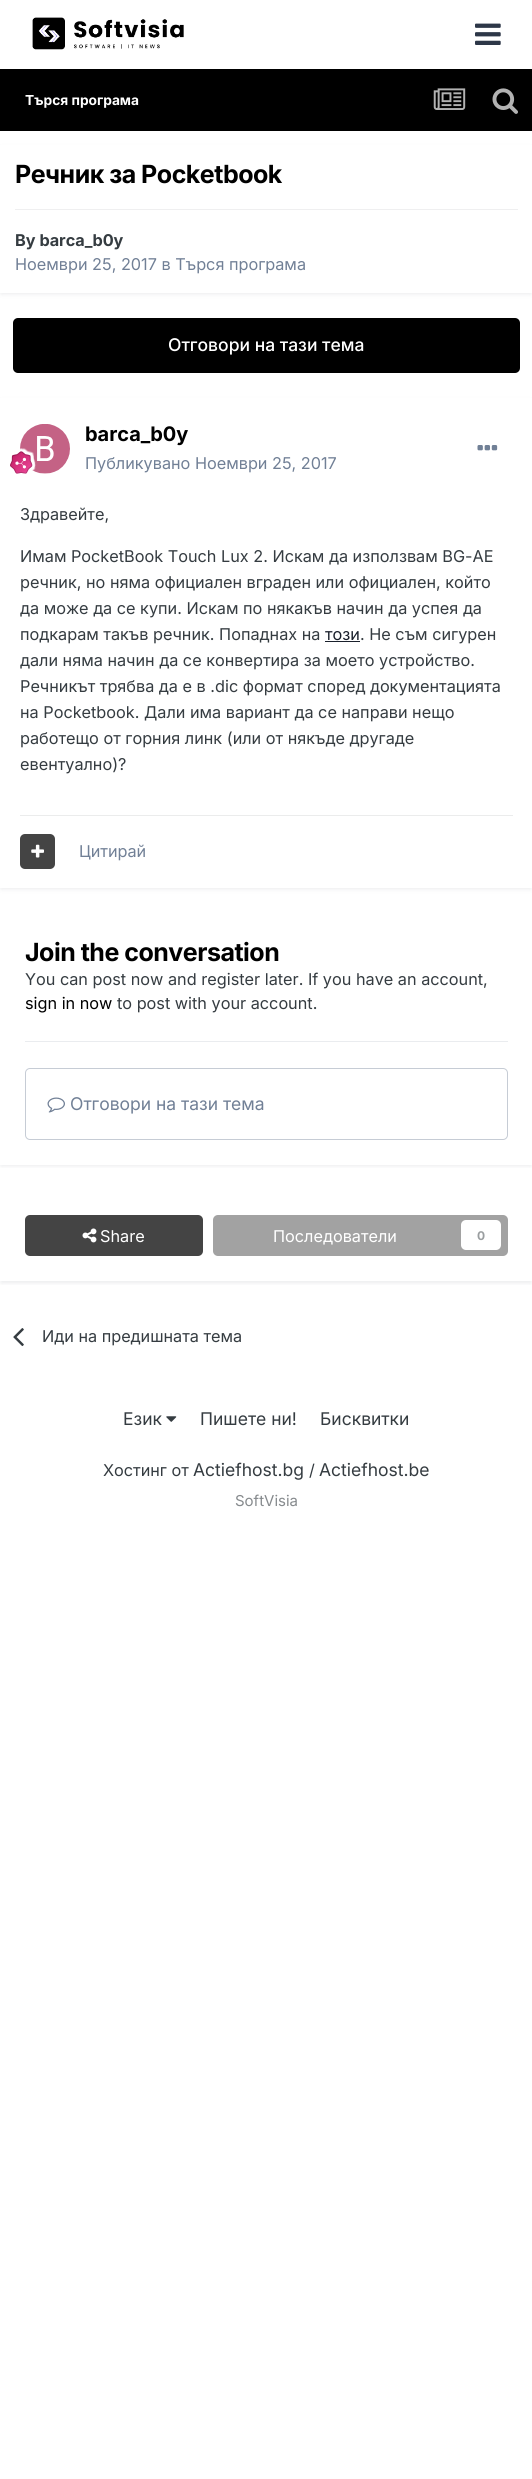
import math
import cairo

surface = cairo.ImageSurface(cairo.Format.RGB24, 532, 2479)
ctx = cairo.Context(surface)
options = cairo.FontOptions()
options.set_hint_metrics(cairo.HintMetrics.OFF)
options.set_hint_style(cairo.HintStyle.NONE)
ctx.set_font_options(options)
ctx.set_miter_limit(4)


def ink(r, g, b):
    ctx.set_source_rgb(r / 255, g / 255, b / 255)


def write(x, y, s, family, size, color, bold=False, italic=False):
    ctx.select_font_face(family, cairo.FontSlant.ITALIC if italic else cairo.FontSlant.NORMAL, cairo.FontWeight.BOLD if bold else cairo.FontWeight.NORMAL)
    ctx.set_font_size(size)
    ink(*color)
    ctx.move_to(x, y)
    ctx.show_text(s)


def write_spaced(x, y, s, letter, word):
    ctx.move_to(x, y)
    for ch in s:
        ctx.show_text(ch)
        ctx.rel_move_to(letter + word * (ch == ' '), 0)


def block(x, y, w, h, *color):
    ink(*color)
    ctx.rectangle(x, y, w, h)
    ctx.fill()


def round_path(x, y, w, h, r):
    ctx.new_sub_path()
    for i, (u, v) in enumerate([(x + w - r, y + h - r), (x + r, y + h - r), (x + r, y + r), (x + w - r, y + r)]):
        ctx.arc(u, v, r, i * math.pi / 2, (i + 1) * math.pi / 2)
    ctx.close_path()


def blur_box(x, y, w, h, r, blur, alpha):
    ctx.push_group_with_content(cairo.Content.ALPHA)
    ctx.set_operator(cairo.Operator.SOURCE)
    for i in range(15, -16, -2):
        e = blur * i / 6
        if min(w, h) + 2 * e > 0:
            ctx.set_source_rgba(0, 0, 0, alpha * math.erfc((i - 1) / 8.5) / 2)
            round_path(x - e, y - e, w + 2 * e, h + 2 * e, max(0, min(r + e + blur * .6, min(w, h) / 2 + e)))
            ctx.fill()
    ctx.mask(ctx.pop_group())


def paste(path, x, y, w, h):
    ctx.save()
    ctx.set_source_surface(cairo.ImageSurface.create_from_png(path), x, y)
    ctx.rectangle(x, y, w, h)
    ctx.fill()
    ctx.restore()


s1 = dict(family="Inter", size=13.75, color=(255, 255, 255), bold=True)
s2 = dict(family="Inter", size=16.25, color=(53, 60, 65), bold=True)
s3 = dict(family="Inter", size=16.25, color=(113, 128, 150))
s4 = dict(family="Inter Medium", size=17.5, color=(255, 255, 255))
s5 = dict(family="Inter", size=20, color=(0, 0, 0), bold=True)
s6 = dict(family="Inter", size=16.25, color=(53, 60, 65))
s7 = dict(family="Inter", size=16.25, color=(26, 32, 44))
s8 = dict(family="Inter", size=16.25, color=(0, 0, 0))
s9 = dict(family="Inter", size=17.5, color=(113, 128, 150))
s10 = dict(family="Inter", size=16.25, color=(255, 255, 255))
s11 = dict(family="Inter", size=12, color=(154, 158, 160), bold=True)
s12 = dict(family="Inter", size=17.5, color=(53, 60, 65))
s13 = dict(family="Inter", size=15, color=(134, 138, 141))

ink(255, 255, 255)
ctx.paint()
paste("pic1.png", 32, 17, 152, 33)
paste("pic2.png", 475, 23, 26, 22)
block(0, 69, 532, 62, 0, 0, 0)
write(25, 105, "Търся програма", **s1)
paste("pic3.png", 433, 88, 33, 22)
paste("pic4.png", 492, 88, 26, 26)
ink(45, 55, 72)
blur_box(1, 148, 530, 146, 0, 2.5, 0.1)
block(0, 145, 532, 148, 255, 255, 255)
ctx.set_font_size(25)
ink(0, 0, 0)
write_spaced(15, 183, "Речник за Pocketbook", -0.5, 0)
block(15, 209, 503, 1, 239, 239, 240)
write(15, 246, "By barca_b0y", **s2)
write(15, 270, "Ноември 25, 2017 в Търся програма", **s3)
ink(0, 0, 0)
round_path(13, 318, 507, 55, 5)
ctx.fill()
write(168, 351, "Отговори на тази тема", **s4)
ink(45, 55, 72)
blur_box(1, 401, 530, 488, 0, 2.5, 0.1)
block(0, 398, 532, 490, 255, 255, 255)
paste("pic5.png", 20, 424, 50, 50)
paste("pic6.png", 10, 448, 26, 26)
write(85, 441, "barca_b0y", **s5)
write(85, 469, "Публикувано Ноември 25, 2017", **s3)
paste("pic7.png", 477, 445, 21, 6)
write(20, 520, "Здравейте,", **s6)
write(20, 562, "Имам PocketBook Touch Lux 2. Искам да използвам BG-AE", **s6)
write(20, 588, "речник, но няма официален вграден или официален, който", **s6)
write(20, 614, "да може да се купи. Искам по някакъв начин да успея да", **s6)
write(20, 640, "подкарам такъв речник. Попаднах на", **s6)
write(325, 640, "този", **s7)
block(325, 641, 35, 1, 26, 32, 44)
write(360, 640, ". Не съм сигурен", **s6)
write(20, 666, "дали няма начин да се конвертира за моето устройство.", **s6)
write(20, 692, "Речникът трябва да е в .dic формат според документацията", **s6)
write(20, 718, "на Pocketbook. Дали има вариант да се направи нещо", **s6)
write(20, 744, "работещо от горния линк (или от някъде другаде", **s6)
write(20, 770, "евентуално)?", **s6)
block(20, 815, 493, 1, 235, 236, 236)
ink(68, 68, 68)
round_path(20, 834, 35, 35, 5)
ctx.fill()
paste("pic8.png", 31, 844, 13, 14)
write(79, 857, "Цитирай", **s3)
ctx.save()
ctx.rectangle(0, 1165, 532, 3)
ctx.clip()
ink(45, 55, 72)
blur_box(1, 916, 530, 250, 0, 2.5, 0.1)
ctx.restore()
block(25, 1041, 483, 1, 234, 236, 239)
ctx.select_font_face("Inter", cairo.FontSlant.NORMAL, cairo.FontWeight.BOLD)
ctx.set_font_size(25)
ink(0, 0, 0)
write_spaced(25, 961, "Join the conversation", -0.5, 0)
write(25, 985, "You can post now and register later. If you have an account,", **s6)
write(25, 1009, "sign in now", **s8)
write(117, 1009, "to post with your account.", **s6)
round_path(25.5, 1068.5, 482, 71, 4.5)
ink(198, 204, 213)
ctx.set_line_width(1)
ctx.stroke()
paste("pic9.png", 47, 1097, 18, 16)
write(70, 1110, "Отговори на тази тема", **s9)
ctx.save()
ctx.rectangle(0, 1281, 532, 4)
ctx.clip()
ink(45, 55, 72)
blur_box(1, 1194, 530, 89, 0, 2.5, 0.1)
ctx.restore()
ink(68, 68, 68)
round_path(25, 1215, 178, 41, 5)
ctx.fill()
paste("pic10.png", 82, 1228, 15, 15)
write(100, 1242, "Share", **s10)
ink(162, 162, 162)
round_path(213, 1215, 295, 41, 5)
ctx.fill()
write(273, 1242, "Последователи", **s10)
round_path(461, 1220, 40, 30, 5)
ctx.fill()
write(477, 1240, "0", **s11)
paste("pic11.png", 13, 1328, 11, 19)
write(42, 1342, "Иди на предишната тема", **s6)
write(123, 1425, "Език", **s12)
paste("pic12.png", 166, 1416, 11, 6)
write(200, 1425, "Пишете ни!", **s12)
write(320, 1425, "Бисквитки", **s12)
write(103, 1476, "Хостинг от", **s6)
write(193, 1476, "Actiefhost.bg", **s12)
write(309, 1476, "/", **s6)
write(319, 1476, "Actiefhost.be", **s12)
write(235, 1506, "SoftVisia", **s13)
surface.write_to_png("screenshot.png")
